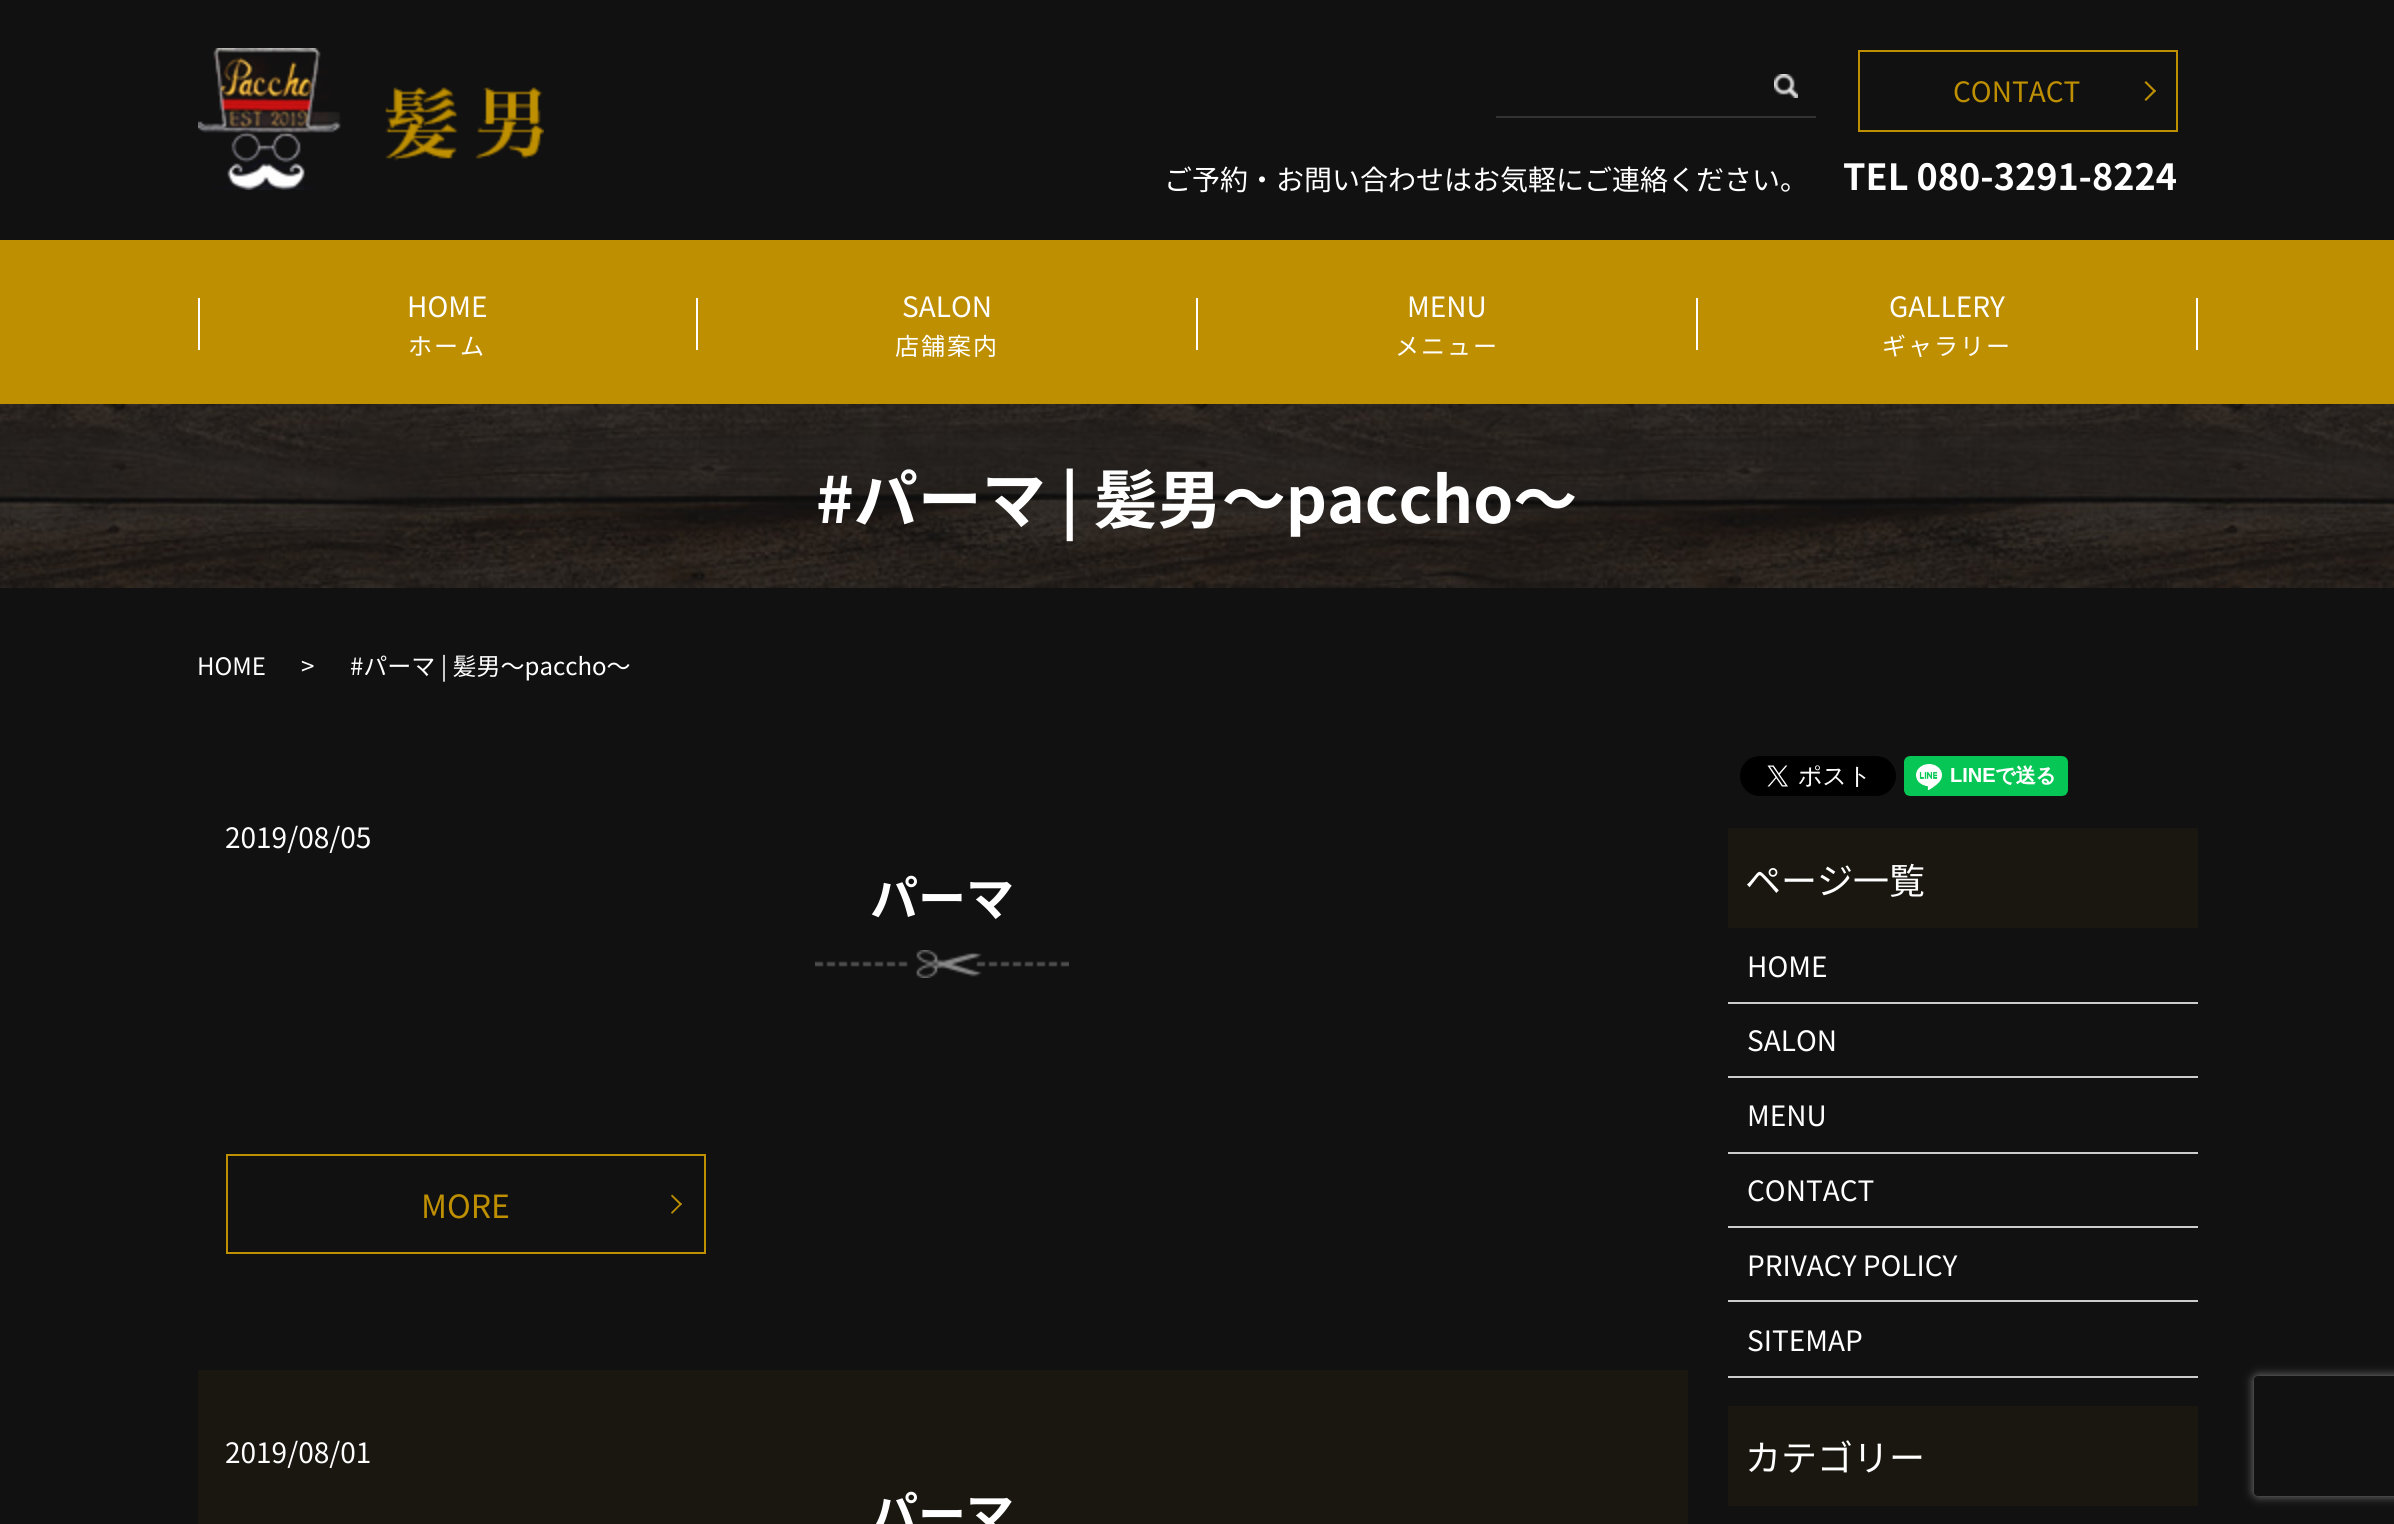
import math
import cairo

surface = cairo.ImageSurface(cairo.Format.RGB24, 2394, 1524)
ctx = cairo.Context(surface)
options = cairo.FontOptions()
options.set_hint_metrics(cairo.HintMetrics.OFF)
options.set_hint_style(cairo.HintStyle.NONE)
ctx.set_font_options(options)
ctx.set_miter_limit(4)


def ink(r, g, b):
    ctx.set_source_rgb(r / 255, g / 255, b / 255)


def write(x, y, s, family, size, color, bold=False, italic=False):
    ctx.select_font_face(family, cairo.FontSlant.ITALIC if italic else cairo.FontSlant.NORMAL, cairo.FontWeight.BOLD if bold else cairo.FontWeight.NORMAL)
    ctx.set_font_size(size)
    ink(*color)
    ctx.move_to(x, y)
    ctx.show_text(s)


def write_spaced(x, y, s, letter, word):
    ctx.move_to(x, y)
    for ch in s:
        ctx.show_text(ch)
        ctx.rel_move_to(letter + word * (ch == ' '), 0)


def block(x, y, w, h, *color):
    ink(*color)
    ctx.rectangle(x, y, w, h)
    ctx.fill()


def round_path(x, y, w, h, r):
    ctx.new_sub_path()
    for i, (u, v) in enumerate([(x + w - r, y + h - r), (x + r, y + h - r), (x + r, y + r), (x + w - r, y + r)]):
        ctx.arc(u, v, r, i * math.pi / 2, (i + 1) * math.pi / 2)
    ctx.close_path()


def blur_box(x, y, w, h, r, blur, alpha):
    ctx.push_group_with_content(cairo.Content.ALPHA)
    ctx.set_operator(cairo.Operator.SOURCE)
    for i in range(15, -16, -2):
        e = blur * i / 6
        if min(w, h) + 2 * e > 0:
            ctx.set_source_rgba(0, 0, 0, alpha * math.erfc((i - 1) / 8.5) / 2)
            round_path(x - e, y - e, w + 2 * e, h + 2 * e, max(0, min(r + e + blur * .6, min(w, h) / 2 + e)))
            ctx.fill()
    ctx.mask(ctx.pop_group())


def paste(path, x, y, w, h):
    ctx.save()
    ctx.set_source_surface(cairo.ImageSurface.create_from_png(path), x, y)
    ctx.rectangle(x, y, w, h)
    ctx.fill()
    ctx.restore()


s1 = dict(family="Noto Sans JP", size=28, color=(190, 143, 0))
s2 = dict(family="Noto Sans JP", size=28, color=(255, 255, 255))
s3 = dict(family="Noto Sans JP", size=36, color=(255, 255, 255), bold=True)
s4 = dict(family="Noto Sans JP", size=64, color=(255, 255, 255), bold=True)
s5 = dict(family="Noto Sans JP", size=24, color=(255, 255, 255))
s6 = dict(family="Noto Sans JP", size=48, color=(255, 255, 255), bold=True)
s7 = dict(family="Noto Sans JP", size=32, color=(190, 143, 0))
s8 = dict(family="Noto Sans JP", size=36, color=(255, 255, 255))

ink(17, 17, 17)
ctx.paint()
block(0, 240, 2394, 164, 190, 143, 0)
block(1496, 116, 320, 2, 51, 51, 51)
paste("pic1.png", 1774, 74, 24, 24)
ctx.rectangle(1859, 51, 318, 80)
ink(190, 143, 0)
ctx.stroke()
write(1953, 102, "CONTACT", **s1)
ctx.new_path()
ctx.move_to(2146, 81)
ctx.line_to(2156, 91)
ctx.line_to(2154.5, 92.5)
ctx.line_to(2144.5, 82.5)
ctx.close_path()
ctx.fill()
ctx.new_path()
ctx.move_to(2154.5, 89.5)
ctx.line_to(2156, 91)
ctx.line_to(2146, 101)
ctx.line_to(2144.5, 99.5)
ctx.close_path()
ctx.fill()
block(198, 298, 2, 52, 255, 255, 255)
write(407, 317, "HOME", **s2)
block(696, 298, 2, 52, 255, 255, 255)
ctx.set_font_size(24)
write_spaced(408, 355, "ホーム", 2, 0)
write(902, 317, "SALON", **s2)
block(1196, 298, 2, 52, 255, 255, 255)
ctx.set_font_size(24)
write_spaced(895, 355, "店舗案内", 2, 0)
write(1407, 317, "MENU", **s2)
block(1696, 298, 2, 52, 255, 255, 255)
ctx.set_font_size(24)
write_spaced(1395, 355, "メニュー", 2, 0)
write(1889, 317, "GALLERY", **s2)
block(2196, 298, 2, 52, 255, 255, 255)
ctx.set_font_size(24)
write_spaced(1882, 355, "ギャラリー", 2, 0)
paste("pic2.png", 198, 48, 346, 142)
write(1164, 190, "ご予約・お問い合わせはお気軽にご連絡ください。", **s2)
write(1843, 190, "TEL 080-3291-8224", **s3)
paste("pic3.png", 0, 404, 2394, 184)
write(816, 523, "#パーマ | 髪男～paccho～", **s4)
write(197, 675, "HOME", **s5)
write(301, 675, ">", **s5)
write(350, 675, "#パーマ | 髪男～paccho～", **s5)
write(225, 848, "2019/08/05", **s2)
write(870, 916, "パーマ", **s6)
paste("pic4.png", 815, 950, 254, 28)
ctx.rectangle(227, 1155, 478, 98)
ink(190, 143, 0)
ctx.stroke()
write(421, 1218, "MORE", **s7)
ctx.new_path()
ctx.move_to(672, 1194.5)
ctx.line_to(682, 1204)
ctx.line_to(680.5, 1205.5)
ctx.line_to(671, 1196)
ctx.close_path()
ctx.fill()
ctx.new_path()
ctx.move_to(680.5, 1203)
ctx.line_to(682, 1204)
ctx.line_to(672, 1214)
ctx.line_to(671, 1212.5)
ctx.close_path()
ctx.fill()
block(198, 1370, 1490, 154, 26, 23, 16)
write(225, 1463, "2019/08/01", **s2)
write(870, 1532, "パーマ", **s6)
paste("pic5.png", 1740, 756, 156, 40)
paste("pic6.png", 1904, 756, 164, 40)
block(1728, 828, 470, 100, 26, 23, 16)
write(1745, 894, "ページ一覧", **s8)
block(1728, 1002, 470, 2, 204, 204, 204)
write(1747, 977, "HOME", **s2)
block(1728, 1076, 470, 2, 204, 204, 204)
write(1747, 1051, "SALON", **s2)
block(1728, 1152, 470, 2, 204, 204, 204)
write(1747, 1126, "MENU", **s2)
block(1728, 1226, 470, 2, 204, 204, 204)
write(1747, 1201, "CONTACT", **s2)
block(1728, 1300, 470, 2, 204, 204, 204)
write(1747, 1276, "PRIVACY POLICY", **s2)
block(1728, 1376, 470, 2, 204, 204, 204)
write(1747, 1351, "SITEMAP", **s2)
block(1728, 1406, 470, 100, 26, 23, 16)
write(1745, 1471, "カテゴリー", **s8)
ctx.save()
ctx.set_fill_rule(cairo.FillRule.EVEN_ODD)
ctx.new_path()
ctx.move_to(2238, 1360)
ctx.line_to(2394, 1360)
ctx.line_to(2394, 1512)
ctx.line_to(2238, 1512)
ctx.close_path()
ctx.move_to(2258, 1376)
ctx.line_to(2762, 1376)
ctx.curve_to(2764, 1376, 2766, 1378, 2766, 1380)
ctx.line_to(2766, 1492)
ctx.curve_to(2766, 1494, 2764, 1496, 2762, 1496)
ctx.line_to(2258, 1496)
ctx.curve_to(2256, 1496, 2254, 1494, 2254, 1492)
ctx.line_to(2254, 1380)
ctx.curve_to(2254, 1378, 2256, 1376, 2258, 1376)
ctx.close_path()
ctx.clip()
ink(128, 128, 128)
blur_box(2254, 1376, 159, 120, 4, 5, 1)
ctx.restore()
surface.write_to_png("screenshot.png")
